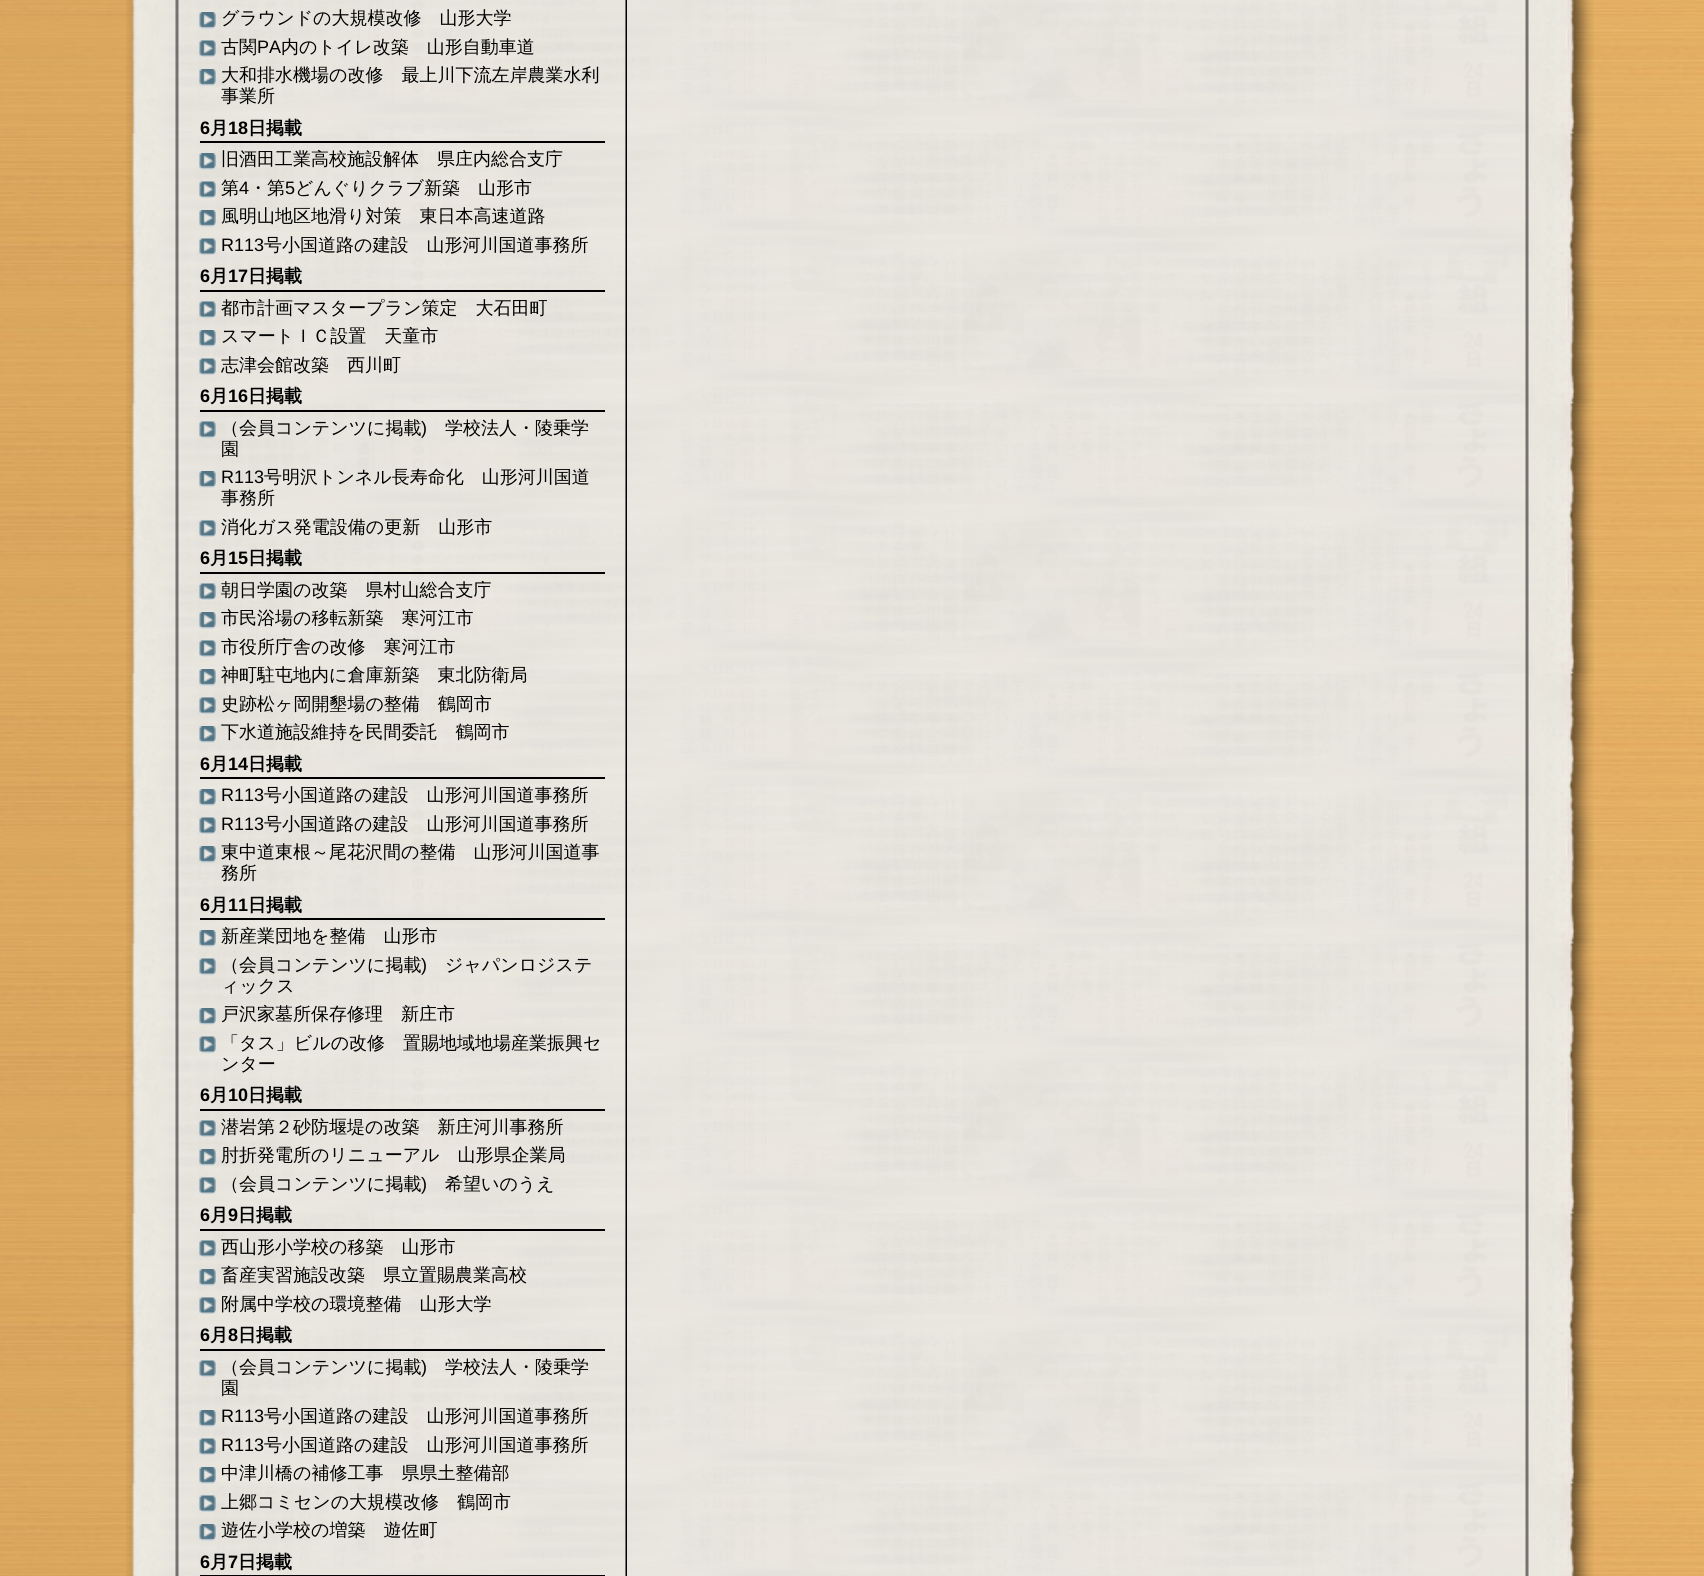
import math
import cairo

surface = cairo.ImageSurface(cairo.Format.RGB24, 1704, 1576)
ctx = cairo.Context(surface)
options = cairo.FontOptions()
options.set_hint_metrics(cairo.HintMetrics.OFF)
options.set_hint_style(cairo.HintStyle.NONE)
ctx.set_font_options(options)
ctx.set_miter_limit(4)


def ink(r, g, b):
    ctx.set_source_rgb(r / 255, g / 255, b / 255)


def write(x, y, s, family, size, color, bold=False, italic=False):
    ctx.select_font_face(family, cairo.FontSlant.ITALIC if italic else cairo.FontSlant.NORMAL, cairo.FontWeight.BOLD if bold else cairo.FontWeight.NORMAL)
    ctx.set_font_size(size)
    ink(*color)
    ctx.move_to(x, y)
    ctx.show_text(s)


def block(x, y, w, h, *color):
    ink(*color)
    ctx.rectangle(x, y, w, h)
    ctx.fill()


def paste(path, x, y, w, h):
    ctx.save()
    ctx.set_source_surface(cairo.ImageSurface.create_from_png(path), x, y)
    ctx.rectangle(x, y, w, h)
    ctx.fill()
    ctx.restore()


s1 = dict(family="WenQuanYi Zen Hei Medium", size=18, color=(0, 0, 0))
s2 = dict(family="Liberation Sans", size=18, color=(0, 0, 0))
s3 = dict(family="Liberation Sans", size=18, color=(0, 0, 0), bold=True)
s4 = dict(family="WenQuanYi Zen Hei", size=18, color=(0, 0, 0), bold=True)

ink(255, 255, 255)
ctx.paint()
paste("pic1.png", 0, 0, 1704, 1576)
paste("pic2.png", 126, 0, 1468, 1576)
paste("pic3.png", 625, 0, 2, 1576)
paste("pic4.png", 199, 12, 17, 17)
write(221, 24, "グラウンドの大規模改修　山形大学", **s1)
paste("pic5.png", 199, 40, 17, 17)
write(221, 53, "古関", **s1)
write(257, 53, "PA", **s2)
write(281, 53, "内のトイレ改築　山形自動車道", **s1)
paste("pic6.png", 199, 69, 17, 17)
write(221, 81, "大和排水機場の改修　最上川下流左岸農業水利", **s1)
write(221, 102, "事業所", **s1)
block(200, 141, 405, 2, 0, 0, 0)
write(200, 134, "6", **s3)
write(210, 134, "月", **s4)
write(228, 134, "18", **s3)
write(248, 134, "日掲載", **s4)
paste("pic7.png", 199, 153, 17, 17)
write(221, 165, "旧酒田工業高校施設解体　県庄内総合支庁", **s1)
paste("pic8.png", 199, 181, 17, 17)
write(221, 194, "第", **s1)
write(239, 194, "4", **s2)
write(249, 194, "・第", **s1)
write(285, 194, "5", **s2)
write(295, 194, "どんぐりクラブ新築　山形市", **s1)
paste("pic9.png", 199, 210, 17, 17)
write(221, 222, "風明山地区地滑り対策　東日本高速道路", **s1)
paste("pic10.png", 199, 238, 17, 17)
write(221, 251, "R113", **s2)
write(264, 251, "号小国道路の建設　山形河川国道事務所", **s1)
block(200, 290, 405, 2, 0, 0, 0)
write(200, 282, "6", **s3)
write(210, 282, "月", **s4)
write(228, 282, "17", **s3)
write(248, 282, "日掲載", **s4)
paste("pic11.png", 199, 301, 17, 17)
write(221, 314, "都市計画マスタープラン策定　大石田町", **s1)
paste("pic12.png", 199, 330, 17, 17)
write(221, 342, "スマートＩＣ設置　天童市", **s1)
paste("pic13.png", 199, 358, 17, 17)
write(221, 371, "志津会館改築　西川町", **s1)
block(200, 410, 405, 2, 0, 0, 0)
write(200, 402, "6", **s3)
write(210, 402, "月", **s4)
write(228, 402, "16", **s3)
write(248, 402, "日掲載", **s4)
paste("pic14.png", 199, 421, 17, 18)
write(221, 434, "（会員コンテンツに掲載", **s1)
write(421, 434, ")", **s2)
write(445, 434, "学校法人・陵乗学", **s1)
write(221, 455, "園", **s1)
paste("pic15.png", 199, 471, 17, 17)
write(221, 483, "R113", **s2)
write(264, 483, "号明沢トンネル長寿命化　山形河川国道", **s1)
write(221, 504, "事務所", **s1)
paste("pic16.png", 199, 520, 17, 17)
write(221, 533, "消化ガス発電設備の更新　山形市", **s1)
block(200, 572, 405, 2, 0, 0, 0)
write(200, 564, "6", **s3)
write(210, 564, "月", **s4)
write(228, 564, "15", **s3)
write(248, 564, "日掲載", **s4)
paste("pic17.png", 199, 583, 17, 17)
write(221, 596, "朝日学園の改築　県村山総合支庁", **s1)
paste("pic18.png", 199, 612, 17, 17)
write(221, 624, "市民浴場の移転新築　寒河江市", **s1)
paste("pic19.png", 199, 640, 17, 17)
write(221, 653, "市役所庁舎の改修　寒河江市", **s1)
paste("pic20.png", 199, 669, 17, 17)
write(221, 681, "神町駐屯地内に倉庫新築　東北防衛局", **s1)
paste("pic21.png", 199, 697, 17, 17)
write(221, 710, "史跡松ヶ岡開墾場の整備　鶴岡市", **s1)
paste("pic22.png", 199, 726, 17, 17)
write(221, 738, "下水道施設維持を民間委託　鶴岡市", **s1)
block(200, 777, 405, 2, 0, 0, 0)
write(200, 770, "6", **s3)
write(210, 770, "月", **s4)
write(228, 770, "14", **s3)
write(248, 770, "日掲載", **s4)
paste("pic23.png", 199, 789, 17, 17)
write(221, 801, "R113", **s2)
write(264, 801, "号小国道路の建設　山形河川国道事務所", **s1)
paste("pic24.png", 199, 817, 17, 17)
write(221, 830, "R113", **s2)
write(264, 830, "号小国道路の建設　山形河川国道事務所", **s1)
paste("pic25.png", 199, 846, 17, 17)
write(221, 858, "東中道東根～尾花沢間の整備　山形河川国道事", **s1)
write(221, 879, "務所", **s1)
block(200, 918, 405, 2, 0, 0, 0)
write(200, 911, "6", **s3)
write(210, 911, "月", **s4)
write(228, 911, "11", **s3)
write(248, 911, "日掲載", **s4)
paste("pic26.png", 199, 930, 17, 17)
write(221, 942, "新産業団地を整備　山形市", **s1)
paste("pic27.png", 199, 958, 17, 18)
write(221, 971, "（会員コンテンツに掲載", **s1)
write(421, 971, ")", **s2)
write(445, 971, "ジャパンロジステ", **s1)
write(221, 992, "ィックス", **s1)
paste("pic28.png", 199, 1008, 17, 17)
write(221, 1020, "戸沢家墓所保存修理　新庄市", **s1)
paste("pic29.png", 199, 1036, 17, 18)
write(221, 1049, "「タス」ビルの改修　置賜地域地場産業振興セ", **s1)
write(221, 1070, "ンター", **s1)
block(200, 1109, 405, 2, 0, 0, 0)
write(200, 1101, "6", **s3)
write(210, 1101, "月", **s4)
write(228, 1101, "10", **s3)
write(248, 1101, "日掲載", **s4)
paste("pic30.png", 199, 1120, 17, 17)
write(221, 1133, "潜岩第２砂防堰堤の改築　新庄河川事務所", **s1)
paste("pic31.png", 199, 1149, 17, 17)
write(221, 1161, "肘折発電所のリニューアル　山形県企業局", **s1)
paste("pic32.png", 199, 1177, 17, 17)
write(221, 1190, "（会員コンテンツに掲載", **s1)
write(421, 1190, ")", **s2)
write(445, 1190, "希望いのうえ", **s1)
block(200, 1229, 405, 2, 0, 0, 0)
write(200, 1221, "6", **s3)
write(210, 1221, "月", **s4)
write(228, 1221, "9", **s3)
write(238, 1221, "日掲載", **s4)
paste("pic33.png", 199, 1240, 17, 17)
write(221, 1253, "西山形小学校の移築　山形市", **s1)
paste("pic34.png", 199, 1269, 17, 17)
write(221, 1281, "畜産実習施設改築　県立置賜農業高校", **s1)
paste("pic35.png", 199, 1297, 17, 17)
write(221, 1310, "附属中学校の環境整備　山形大学", **s1)
block(200, 1349, 405, 2, 0, 0, 0)
write(200, 1341, "6", **s3)
write(210, 1341, "月", **s4)
write(228, 1341, "8", **s3)
write(238, 1341, "日掲載", **s4)
paste("pic36.png", 199, 1360, 17, 18)
write(221, 1373, "（会員コンテンツに掲載", **s1)
write(421, 1373, ")", **s2)
write(445, 1373, "学校法人・陵乗学", **s1)
write(221, 1394, "園", **s1)
paste("pic37.png", 199, 1410, 17, 17)
write(221, 1422, "R113", **s2)
write(264, 1422, "号小国道路の建設　山形河川国道事務所", **s1)
paste("pic13.png", 199, 1438, 17, 17)
write(221, 1451, "R113", **s2)
write(264, 1451, "号小国道路の建設　山形河川国道事務所", **s1)
paste("pic38.png", 199, 1467, 17, 17)
write(221, 1479, "中津川橋の補修工事　県県土整備部", **s1)
paste("pic39.png", 199, 1495, 17, 17)
write(221, 1508, "上郷コミセンの大規模改修　鶴岡市", **s1)
paste("pic40.png", 199, 1524, 17, 17)
write(221, 1536, "遊佐小学校の増築　遊佐町", **s1)
block(200, 1575, 405, 1, 0, 0, 0)
write(200, 1568, "6", **s3)
write(210, 1568, "月", **s4)
write(228, 1568, "7", **s3)
write(238, 1568, "日掲載", **s4)
surface.write_to_png("screenshot.png")
